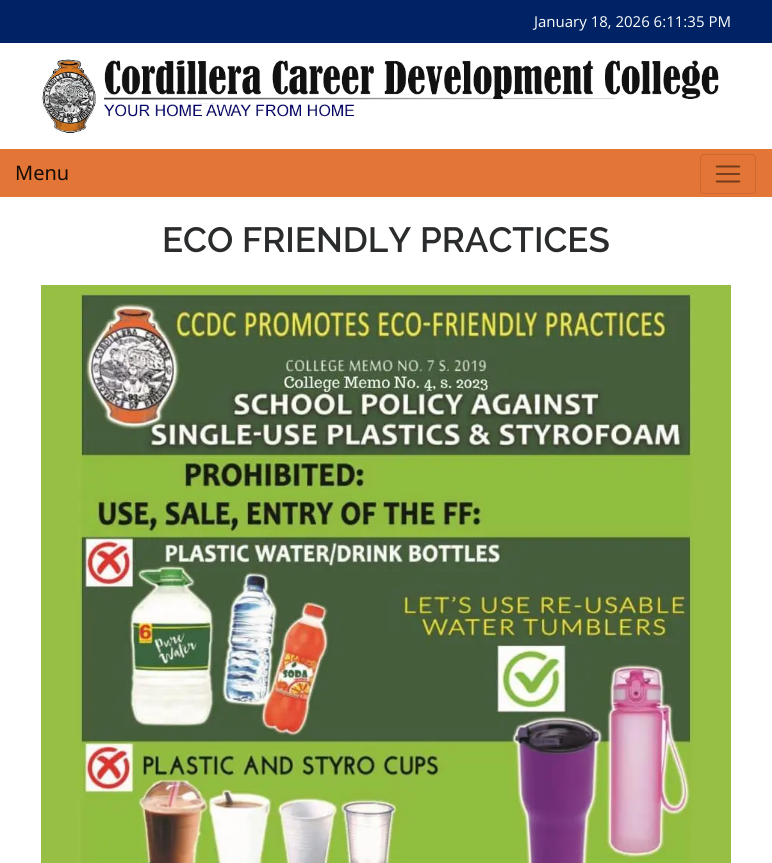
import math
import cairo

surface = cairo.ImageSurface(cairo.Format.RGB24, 772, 863)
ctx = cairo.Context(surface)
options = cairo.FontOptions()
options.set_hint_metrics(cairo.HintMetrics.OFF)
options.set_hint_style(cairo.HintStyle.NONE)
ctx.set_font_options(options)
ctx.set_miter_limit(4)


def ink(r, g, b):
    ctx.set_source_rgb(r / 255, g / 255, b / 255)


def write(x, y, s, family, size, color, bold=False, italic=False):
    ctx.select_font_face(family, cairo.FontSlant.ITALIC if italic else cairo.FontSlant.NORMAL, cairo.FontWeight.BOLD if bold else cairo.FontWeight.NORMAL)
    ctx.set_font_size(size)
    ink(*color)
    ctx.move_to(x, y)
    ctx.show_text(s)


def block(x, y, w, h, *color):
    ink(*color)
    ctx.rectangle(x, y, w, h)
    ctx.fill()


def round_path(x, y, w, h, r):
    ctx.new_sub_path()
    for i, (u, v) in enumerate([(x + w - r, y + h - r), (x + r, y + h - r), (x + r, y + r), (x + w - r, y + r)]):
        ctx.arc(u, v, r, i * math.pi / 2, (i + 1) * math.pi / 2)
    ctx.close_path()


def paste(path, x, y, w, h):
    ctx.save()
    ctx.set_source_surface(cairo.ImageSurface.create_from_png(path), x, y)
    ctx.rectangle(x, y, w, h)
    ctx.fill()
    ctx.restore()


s1 = dict(family="Open Sans", size=15, color=(255, 255, 255))
s2 = dict(family="Noto Sans", size=20, color=(23, 12, 5))
s3 = dict(family="Raleway SemiBold", size=35, color=(41, 43, 44))

ink(255, 255, 255)
ctx.paint()
block(0, 0, 772, 43, 0, 35, 101)
write(534, 27, "January 18, 2026 6:11:35 PM", **s1)
paste("pic1.png", 42, 59, 677, 74)
block(0, 149, 772, 48, 227, 117, 54)
write(15, 180, "Menu", **s2)
round_path(700.5, 154.5, 55, 39, 3.5)
ink(204, 105, 49)
ctx.set_line_width(1)
ctx.stroke()
paste("pic2.png", 715, 165, 26, 18)
write(162, 252, "ECO FRIENDLY PRACTICES", **s3)
paste("pic3.png", 41, 285, 690, 578)
surface.write_to_png("screenshot.png")
